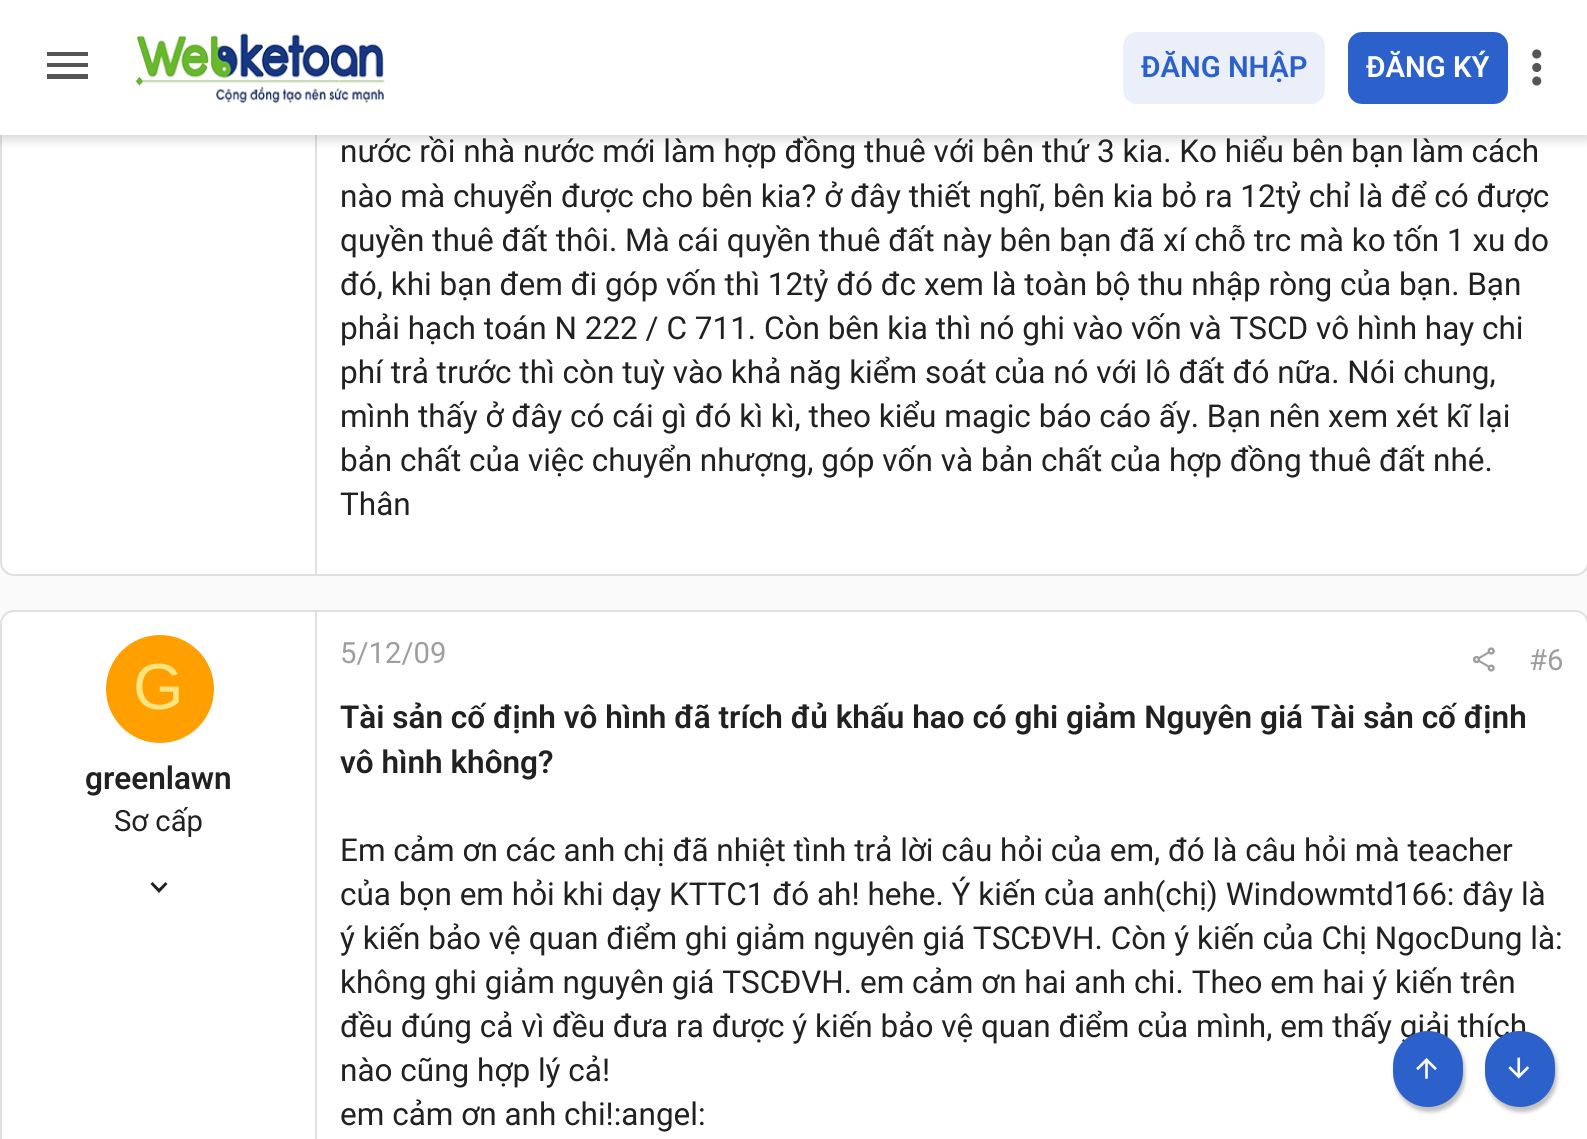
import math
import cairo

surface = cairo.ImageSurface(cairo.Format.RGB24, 1587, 1139)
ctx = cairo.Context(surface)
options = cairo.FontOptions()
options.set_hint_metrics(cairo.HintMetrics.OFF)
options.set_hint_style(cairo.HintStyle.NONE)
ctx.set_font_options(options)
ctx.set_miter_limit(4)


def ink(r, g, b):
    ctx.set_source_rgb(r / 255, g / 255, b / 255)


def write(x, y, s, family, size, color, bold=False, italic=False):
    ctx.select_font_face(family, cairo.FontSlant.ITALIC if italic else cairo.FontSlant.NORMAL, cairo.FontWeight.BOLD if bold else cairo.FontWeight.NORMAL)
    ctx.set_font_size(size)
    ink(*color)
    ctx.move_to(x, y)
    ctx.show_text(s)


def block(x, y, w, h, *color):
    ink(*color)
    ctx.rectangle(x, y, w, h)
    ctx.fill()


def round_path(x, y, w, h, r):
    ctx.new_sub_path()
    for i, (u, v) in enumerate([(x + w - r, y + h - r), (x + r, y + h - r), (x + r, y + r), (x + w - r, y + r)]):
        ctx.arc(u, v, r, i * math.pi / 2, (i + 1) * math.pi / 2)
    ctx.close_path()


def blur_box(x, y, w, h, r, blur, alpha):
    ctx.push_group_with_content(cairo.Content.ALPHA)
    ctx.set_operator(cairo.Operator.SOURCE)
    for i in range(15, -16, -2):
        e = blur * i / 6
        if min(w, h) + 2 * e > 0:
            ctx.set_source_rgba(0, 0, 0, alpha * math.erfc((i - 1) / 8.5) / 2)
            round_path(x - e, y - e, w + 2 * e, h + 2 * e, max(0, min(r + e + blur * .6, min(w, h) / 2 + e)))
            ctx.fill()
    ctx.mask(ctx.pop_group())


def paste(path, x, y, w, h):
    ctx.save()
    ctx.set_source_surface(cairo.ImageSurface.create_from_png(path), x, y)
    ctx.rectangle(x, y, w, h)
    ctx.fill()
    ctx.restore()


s1 = dict(family="Roboto SemiBold", size=29.25, color=(44, 97, 204))
s2 = dict(family="Roboto SemiBold", size=29.25, color=(255, 255, 255))
s3 = dict(family="Roboto", size=31.5, color=(33, 33, 33))
s4 = dict(family="Liberation Sans", size=65, color=(255, 229, 127))
s5 = dict(family="Roboto SemiBold", size=31.5, color=(33, 33, 33))
s6 = dict(family="Roboto", size=29.25, color=(33, 33, 33))
s7 = dict(family="Roboto", size=29.25, color=(158, 158, 158))

ink(250, 250, 250)
ctx.paint()
ink(255, 255, 255)
round_path(1, -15, 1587, 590, 13)
ctx.fill_preserve()
ink(224, 224, 224)
ctx.stroke()
block(315, 135, 2, 439, 224, 224, 224)
ink(66, 66, 66)
blur_box(0, 5, 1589, 135, 0, 5.5, 0.21)
block(0, 0, 1587, 135, 255, 255, 255)
ink(85, 85, 85)
ctx.new_path()
ctx.move_to(47, 52)
ctx.line_to(88, 52)
ctx.line_to(88, 56)
ctx.line_to(47, 56)
ctx.close_path()
ctx.move_to(47, 63)
ctx.line_to(88, 63)
ctx.line_to(88, 67)
ctx.line_to(47, 67)
ctx.close_path()
ctx.move_to(47, 74)
ctx.line_to(88, 74)
ctx.line_to(88, 79)
ctx.line_to(47, 79)
ctx.close_path()
ctx.fill()
paste("pic1.png", 135, 33, 250, 71)
ink(234, 239, 250)
round_path(1123, 32, 202, 72, 14)
ctx.fill()
write(1141, 77, "ĐĂNG NHẬP", **s1)
round_path(1348, 32, 160, 72, 14)
ctx.fill()
write(1366, 77, "ĐĂNG KÝ", **s2)
paste("pic2.png", 1532, 49, 10, 37)
write(340, 162, "nước rồi nhà nước mới làm hợp đồng thuê với bên thứ 3 kia. Ko hiểu bên bạn làm cách", **s3)
write(340, 207, "nào mà chuyển được cho bên kia? ở đây thiết nghĩ, bên kia bỏ ra 12tỷ chỉ là để có được", **s3)
write(340, 251, "quyền thuê đất thôi. Mà cái quyền thuê đất này bên bạn đã xí chỗ trc mà ko tốn 1 xu do", **s3)
write(340, 295, "đó, khi bạn đem đi góp vốn thì 12tỷ đó đc xem là toàn bộ thu nhập ròng của bạn. Bạn", **s3)
write(340, 339, "phải hạch toán N 222 / C 711. Còn bên kia thì nó ghi vào vốn và TSCD vô hình hay chi", **s3)
write(340, 383, "phí trả trước thì còn tuỳ vào khả năg kiểm soát của nó với lô đất đó nữa. Nói chung,", **s3)
write(340, 427, "mình thấy ở đây có cái gì đó kì kì, theo kiểu magic báo cáo ấy. Bạn nên xem xét kĩ lại", **s3)
write(340, 471, "bản chất của việc chuyển nhượng, góp vốn và bản chất của hợp đồng thuê đất nhé.", **s3)
write(340, 515, "Thân", **s3)
ink(255, 255, 255)
round_path(1, 611, 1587, 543, 13)
ctx.fill_preserve()
ink(224, 224, 224)
ctx.stroke()
block(315, 612, 2, 527, 224, 224, 224)
ink(255, 160, 0)
ctx.arc(160, 689, 54, 0, 2 * math.pi)
ctx.fill()
write(133, 709, "G", **s4)
write(85, 789, "greenlawn", **s5)
write(114, 831, "Sơ cấp", **s6)
ctx.new_path()
ctx.move_to(152.5, 882)
ctx.line_to(159, 888.5)
ctx.line_to(165.5, 882)
ctx.line_to(167.5, 884)
ctx.line_to(159, 893)
ctx.line_to(150.5, 884)
ctx.close_path()
ctx.fill()
write(340, 663, "5/12/09", **s7)
paste("pic3.png", 1472, 647, 23, 25)
write(1529, 670, "#6", **s7)
write(340, 728, "Tài sản cố định vô hình đã trích đủ khấu hao có ghi giảm Nguyên giá Tài sản cố định", **s5)
write(340, 773, "vô hình không?", **s5)
write(340, 861, "Em cảm ơn các anh chị đã nhiệt tình trả lời câu hỏi của em, đó là câu hỏi mà teacher", **s3)
write(340, 905, "của bọn em hỏi khi dạy KTTC1 đó ah! hehe. Ý kiến của anh(chị) Windowmtd166: đây là", **s3)
write(340, 949, "ý kiến bảo vệ quan điểm ghi giảm nguyên giá TSCĐVH. Còn ý kiến của Chị NgocDung là:", **s3)
write(340, 993, "không ghi giảm nguyên giá TSCĐVH. em cảm ơn hai anh chi. Theo em hai ý kiến trên", **s3)
write(340, 1037, "đều đúng cả vì đều đưa ra được ý kiến bảo vệ quan điểm của mình, em thấy giải thích", **s3)
write(340, 1081, "nào cũng hợp lý cả!", **s3)
write(340, 1125, "em cảm ơn anh chi!:angel:", **s3)
ink(0, 0, 0)
blur_box(1395, 1035, 70, 77, 35, 2, 0.25)
ink(44, 97, 204)
round_path(1393, 1031, 70, 76, 35)
ctx.fill()
paste("pic4.png", 1416, 1058, 21, 21)
ink(0, 0, 0)
blur_box(1487, 1035, 70, 77, 35, 2, 0.25)
ink(44, 97, 204)
round_path(1485, 1031, 70, 76, 35)
ctx.fill()
paste("pic5.png", 1508, 1057, 21, 22)
surface.write_to_png("screenshot.png")
